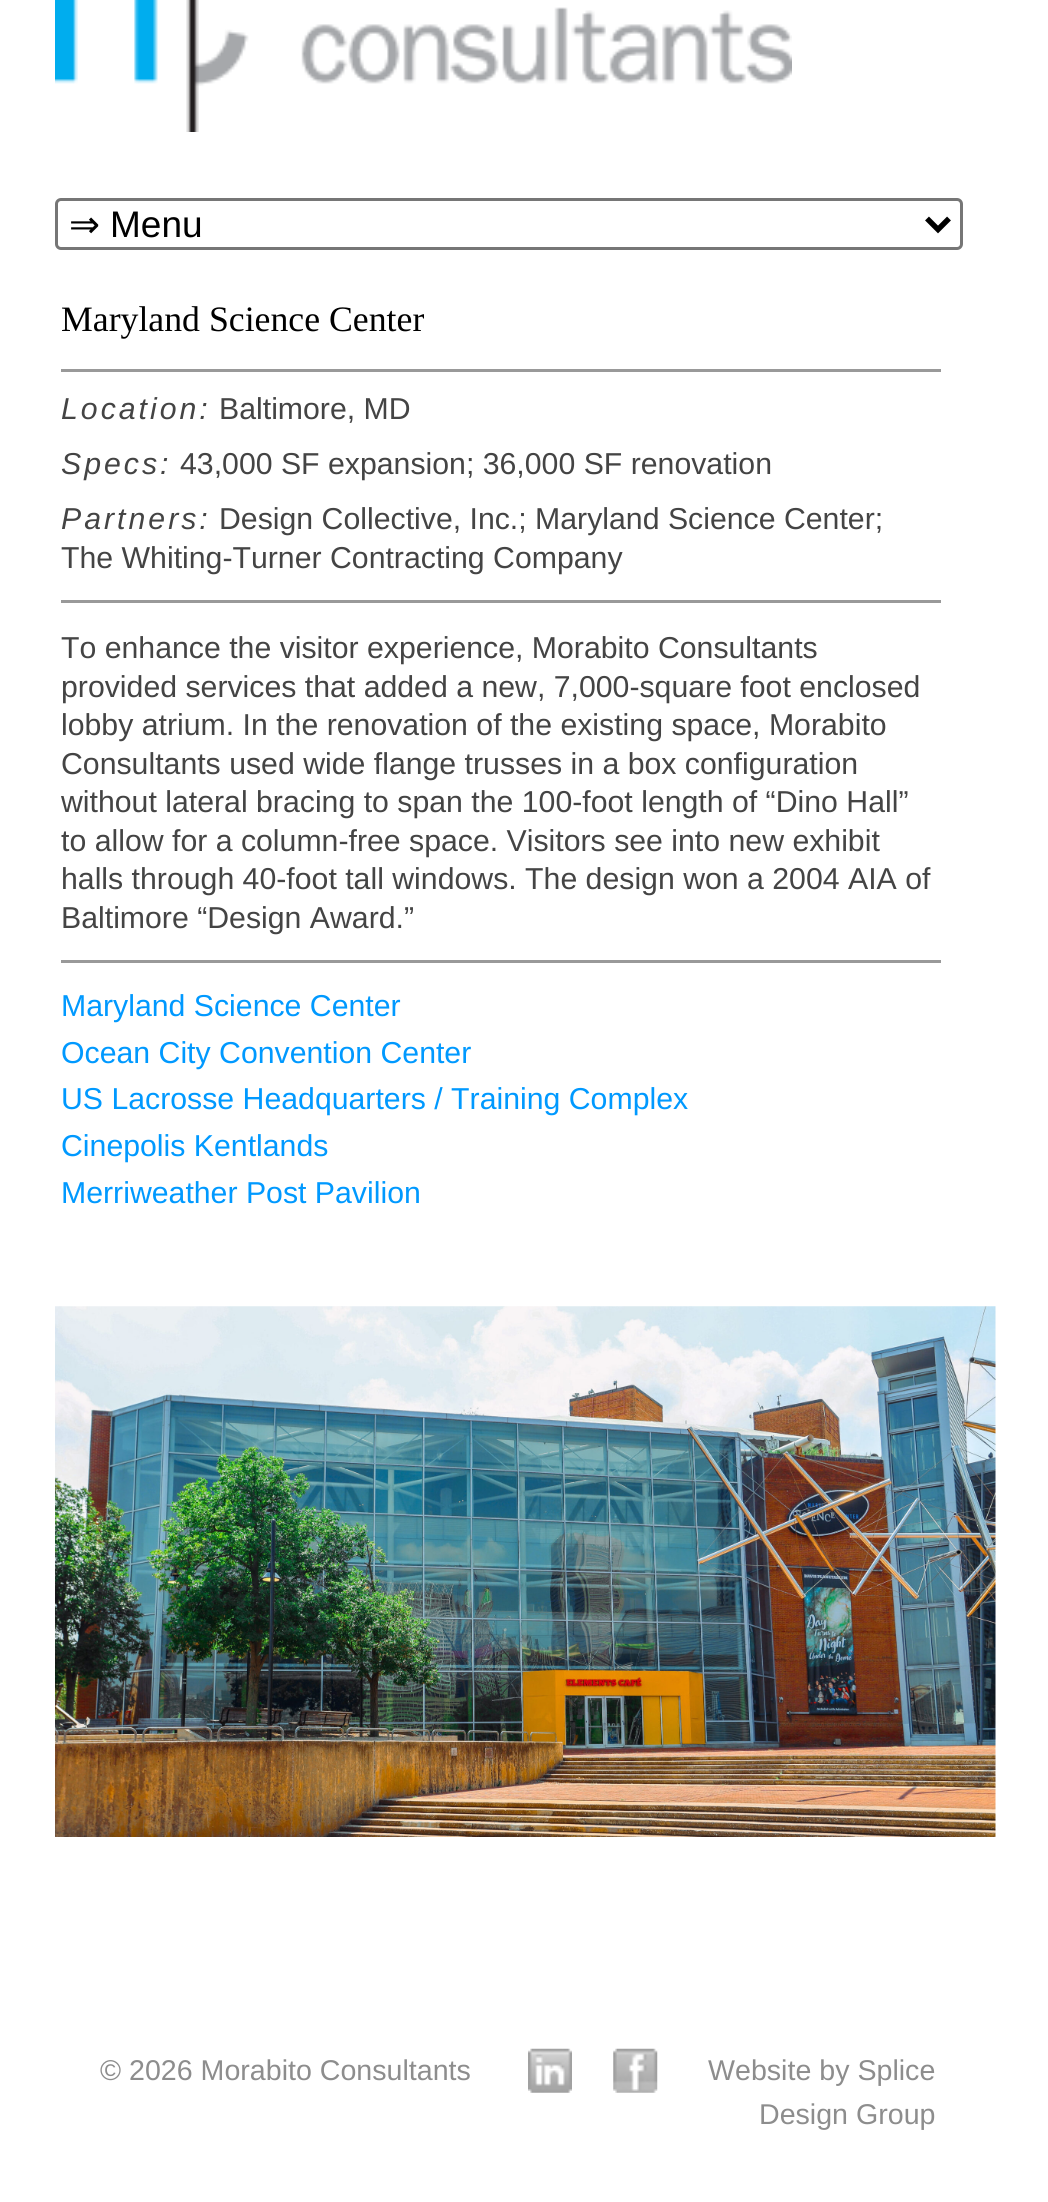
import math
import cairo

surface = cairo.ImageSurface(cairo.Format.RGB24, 1048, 2202)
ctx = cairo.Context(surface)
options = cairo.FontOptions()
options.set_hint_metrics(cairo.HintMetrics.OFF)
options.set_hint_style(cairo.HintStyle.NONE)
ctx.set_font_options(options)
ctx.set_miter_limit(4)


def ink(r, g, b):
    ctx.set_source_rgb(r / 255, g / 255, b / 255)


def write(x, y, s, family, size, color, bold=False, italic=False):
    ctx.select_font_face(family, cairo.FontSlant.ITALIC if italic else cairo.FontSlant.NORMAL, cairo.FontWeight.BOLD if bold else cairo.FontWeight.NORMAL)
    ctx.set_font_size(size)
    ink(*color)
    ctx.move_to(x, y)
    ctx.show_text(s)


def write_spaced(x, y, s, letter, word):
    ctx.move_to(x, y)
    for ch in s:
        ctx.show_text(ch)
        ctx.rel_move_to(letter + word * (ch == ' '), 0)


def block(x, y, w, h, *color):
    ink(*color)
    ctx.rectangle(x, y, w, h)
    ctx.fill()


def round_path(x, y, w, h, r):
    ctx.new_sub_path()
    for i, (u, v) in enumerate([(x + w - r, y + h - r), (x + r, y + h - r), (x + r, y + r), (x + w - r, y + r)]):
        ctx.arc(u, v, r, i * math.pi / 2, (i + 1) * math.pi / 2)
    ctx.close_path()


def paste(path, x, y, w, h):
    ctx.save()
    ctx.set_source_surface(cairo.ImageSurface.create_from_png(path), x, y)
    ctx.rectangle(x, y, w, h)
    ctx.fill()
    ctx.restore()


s1 = dict(family="DejaVu Sans", size=37, color=(0, 0, 0))
s2 = dict(family="Liberation Sans", size=37, color=(0, 0, 0))
s3 = dict(family="Liberation Serif", size=35.75, color=(0, 0, 0))
s4 = dict(family="Liberation Sans", size=30.25, color=(68, 68, 68))
s5 = dict(family="Liberation Sans", size=30.25, color=(0, 153, 255))
s6 = dict(family="Liberation Sans", size=28.6, color=(141, 141, 141))

ink(255, 255, 255)
ctx.paint()
paste("pic1.png", 55, 0, 737, 132)
round_path(56.5, 199.5, 905, 49, 4.5)
ink(118, 118, 118)
ctx.set_line_width(3)
ctx.stroke()
ctx.new_path()
ctx.move_to(927, 218.5)
ctx.line_to(938, 229.5)
ctx.line_to(949, 218.5)
ink(0, 0, 0)
ctx.set_line_width(5.5)
ctx.stroke()
write(69, 237, "⇒", **s1)
write(110, 237, "Menu", **s2)
block(61, 600, 880, 3, 153, 153, 153)
block(61, 369, 880, 3, 153, 153, 153)
write(61, 331, "Maryland Science Center", **s3)
ctx.select_font_face("Liberation Sans", cairo.FontSlant.ITALIC)
ctx.set_font_size(30.25)
ink(68, 68, 68)
write_spaced(61, 419, "Location:", 3, 0)
write(219, 419, "Baltimore, MD", **s4)
ctx.select_font_face("Liberation Sans", cairo.FontSlant.ITALIC)
write_spaced(61, 474, "Specs:", 3, 0)
write(180, 474, "43,000 SF expansion; 36,000 SF renovation", **s4)
ctx.select_font_face("Liberation Sans", cairo.FontSlant.ITALIC)
write_spaced(61, 529, "Partners:", 3, 0)
write(219, 529, "Design Collective, Inc.; Maryland Science Center;", **s4)
write(61, 568, "The Whiting-Turner Contracting Company", **s4)
write(61, 658, "To enhance the visitor experience, Morabito Consultants", **s4)
write(61, 697, "provided services that added a new, 7,000-square foot enclosed", **s4)
write(61, 735, "lobby atrium. In the renovation of the existing space, Morabito", **s4)
write(61, 774, "Consultants used wide flange trusses in a box configuration", **s4)
write(61, 812, "without lateral bracing to span the 100-foot length of “Dino Hall”", **s4)
write(61, 851, "to allow for a column-free space. Visitors see into new exhibit", **s4)
write(61, 889, "halls through 40-foot tall windows. The design won a 2004 AIA of", **s4)
write(61, 928, "Baltimore “Design Award.”", **s4)
block(61, 960, 880, 3, 153, 153, 153)
write(61, 1016, "Maryland Science Center", **s5)
write(61, 1063, "Ocean City Convention Center", **s5)
write(61, 1109, "US Lacrosse Headquarters / Training Complex", **s5)
write(61, 1156, "Cinepolis Kentlands", **s5)
write(61, 1203, "Merriweather Post Pavilion", **s5)
paste("pic2.png", 55, 1306, 941, 531)
write(100, 2080, "© 2026 Morabito Consultants", **s6)
paste("pic3.png", 528, 2048, 44, 45)
paste("pic4.png", 613, 2048, 45, 45)
write(708, 2080, "Website by Splice", **s6)
write(759, 2124, "Design Group", **s6)
surface.write_to_png("screenshot.png")
